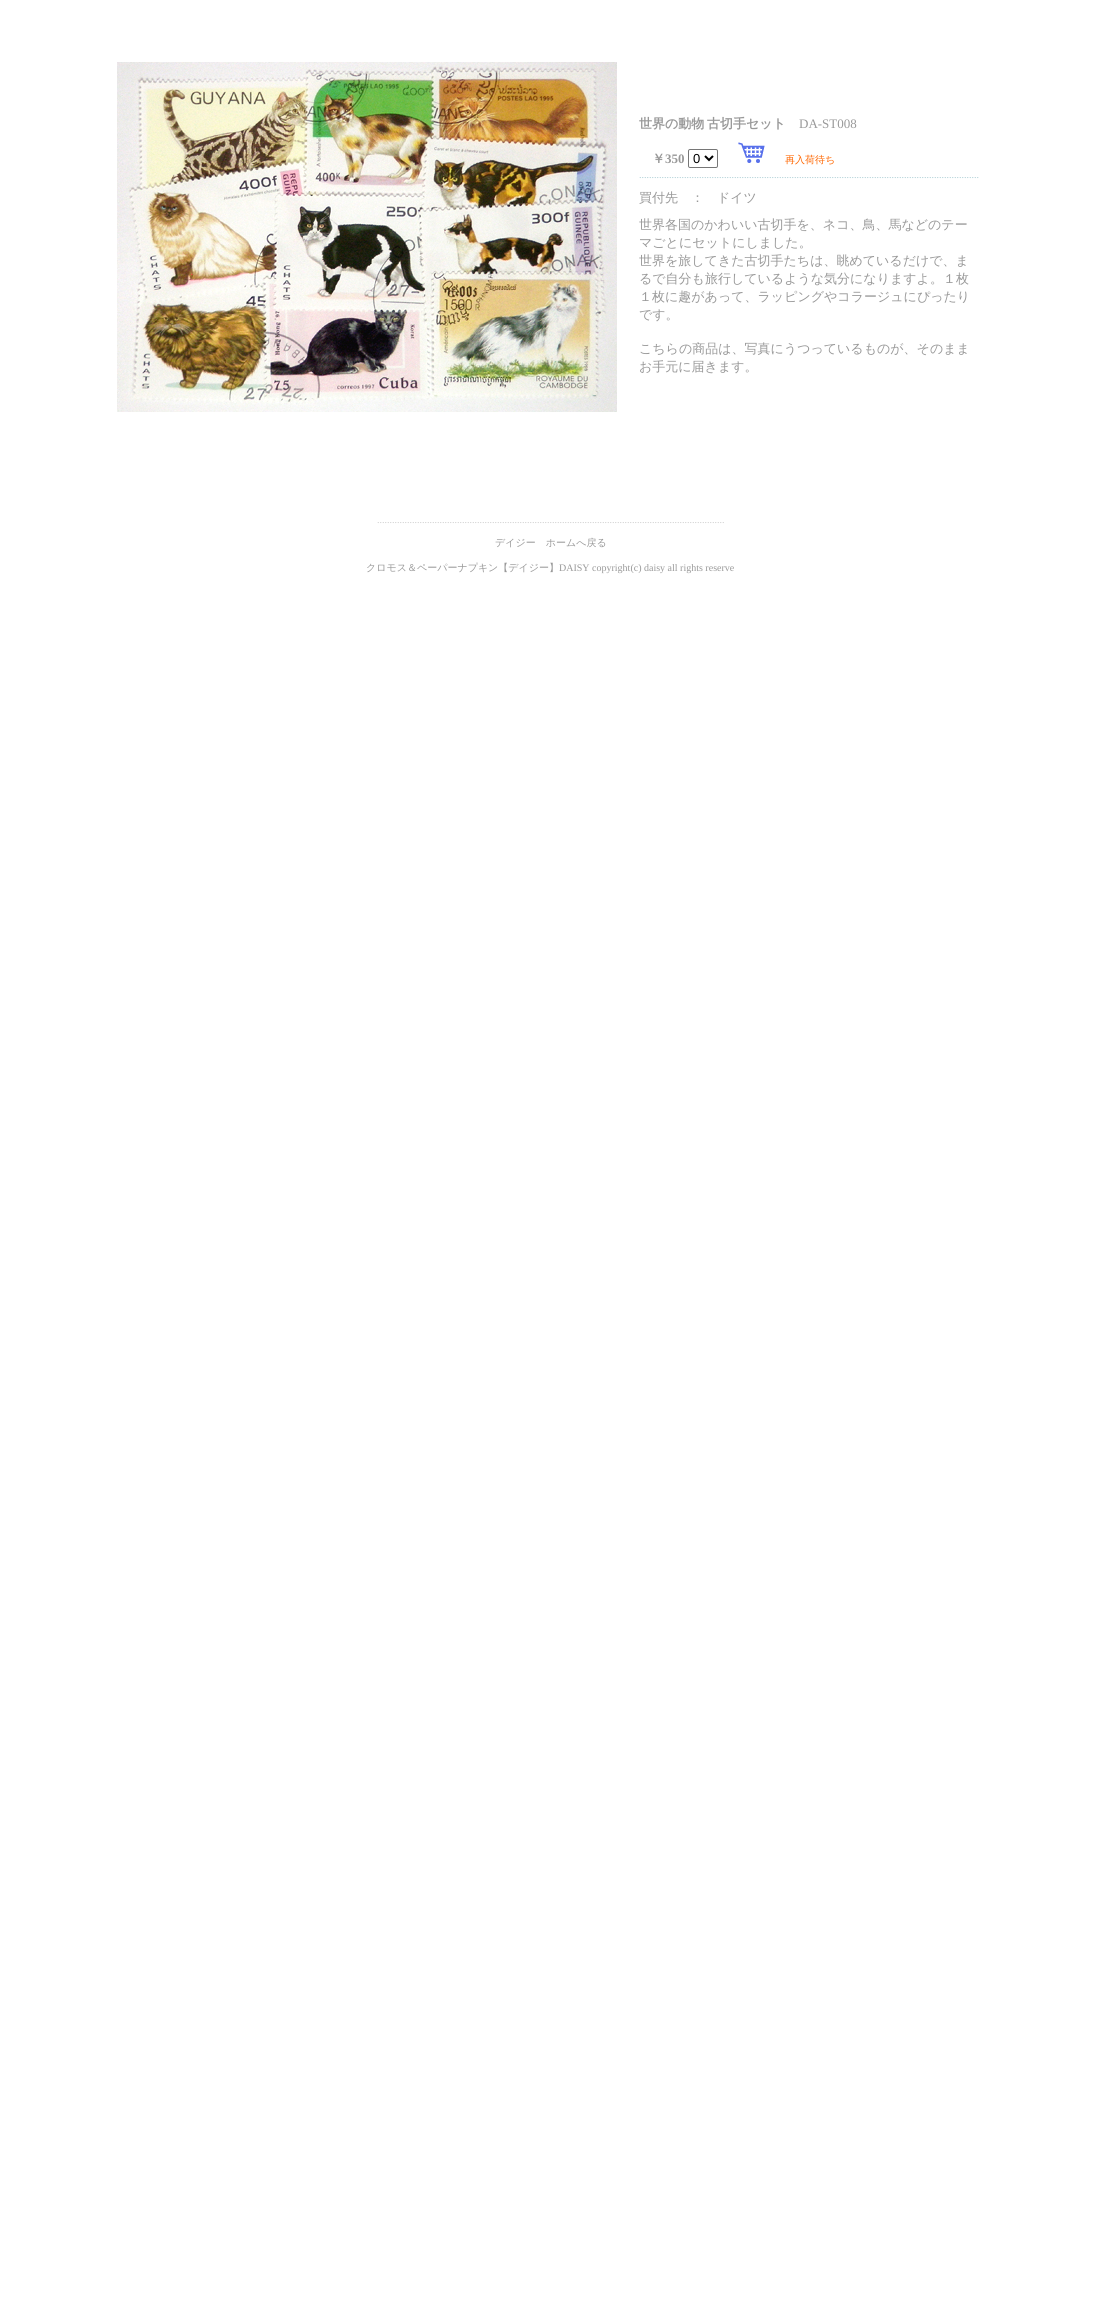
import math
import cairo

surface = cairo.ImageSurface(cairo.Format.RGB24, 1101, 2299)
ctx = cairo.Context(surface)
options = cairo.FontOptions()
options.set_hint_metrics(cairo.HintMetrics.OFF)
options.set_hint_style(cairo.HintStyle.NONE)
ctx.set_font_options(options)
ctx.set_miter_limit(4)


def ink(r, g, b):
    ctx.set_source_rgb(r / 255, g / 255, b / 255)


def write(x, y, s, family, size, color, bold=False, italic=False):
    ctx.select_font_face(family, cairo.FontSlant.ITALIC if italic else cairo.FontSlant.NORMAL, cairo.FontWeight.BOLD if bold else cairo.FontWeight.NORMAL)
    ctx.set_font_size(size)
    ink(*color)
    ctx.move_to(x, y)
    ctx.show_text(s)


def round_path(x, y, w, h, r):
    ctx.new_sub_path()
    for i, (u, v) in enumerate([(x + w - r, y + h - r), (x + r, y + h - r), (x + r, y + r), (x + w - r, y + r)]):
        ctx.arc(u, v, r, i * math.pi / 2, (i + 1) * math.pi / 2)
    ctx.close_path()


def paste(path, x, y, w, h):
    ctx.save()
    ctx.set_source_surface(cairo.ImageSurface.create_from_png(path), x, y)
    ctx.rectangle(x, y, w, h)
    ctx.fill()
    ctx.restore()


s1 = dict(family="WenQuanYi Zen Hei", size=13, color=(153, 153, 153), bold=True)
s2 = dict(family="Liberation Serif", size=13, color=(153, 153, 153))
s3 = dict(family="Liberation Serif", size=13, color=(153, 153, 153), bold=True)
s4 = dict(family="Liberation Sans", size=13, color=(0, 0, 0))
s5 = dict(family="WenQuanYi Zen Hei Medium", size=10, color=(255, 102, 0))
s6 = dict(family="Liberation Serif", size=10, color=(169, 204, 211))
s7 = dict(family="WenQuanYi Zen Hei Medium", size=13, color=(153, 153, 153))
s8 = dict(family="Liberation Serif", size=10, color=(204, 204, 204))
s9 = dict(family="WenQuanYi Zen Hei Medium", size=10, color=(153, 153, 153))
s10 = dict(family="Liberation Serif", size=10, color=(153, 153, 153))

ink(255, 255, 255)
ctx.paint()
paste("pic1.png", 117, 62, 500, 350)
write(639, 128, "世界の動物", **s1)
write(707, 128, "古切手セット", **s1)
write(799, 128, "DA-ST008", **s2)
write(652, 163, "￥", **s1)
write(665, 163, "350", **s3)
round_path(688.5, 149.5, 29, 18, 1.5)
ink(118, 118, 118)
ctx.set_line_width(1)
ctx.stroke()
ctx.new_path()
ctx.move_to(705, 156)
ctx.line_to(709, 160)
ctx.line_to(713, 156)
ink(0, 0, 0)
ctx.set_line_width(2)
ctx.stroke()
write(693, 163, "0", **s4)
paste("pic2.png", 738, 142, 27, 21)
write(785, 163, "再入荷待ち", **s5)
write(639, 178, "........................................................................................................................................", **s6)
write(639, 202, "買付先　：　ドイツ", **s7)
write(639, 229, "世界各国のかわいい古切手を、ネコ、鳥、馬などのテー", **s7)
write(639, 247, "マごとにセットにしました。", **s7)
write(639, 265, "世界を旅してきた古切手たちは、眺めているだけで、ま", **s7)
write(639, 283, "るで自分も旅行しているような気分になりますよ。１枚", **s7)
write(639, 301, "１枚に趣があって、ラッピングやコラージュにぴったり", **s7)
write(639, 319, "です。", **s7)
write(639, 353, "こちらの商品は、写真にうつっているものが、そのまま", **s7)
write(639, 371, "お手元に届きます。", **s7)
write(377, 523, "...........................................................................................................................................", **s8)
write(495, 546, "デイジー　ホームへ戻る", **s9)
write(366, 571, "クロモス＆ペーパーナプキン【デイジー】", **s9)
write(559, 571, "DAISY copyright(c) daisy all rights reserve", **s10)
surface.write_to_png("screenshot.png")
